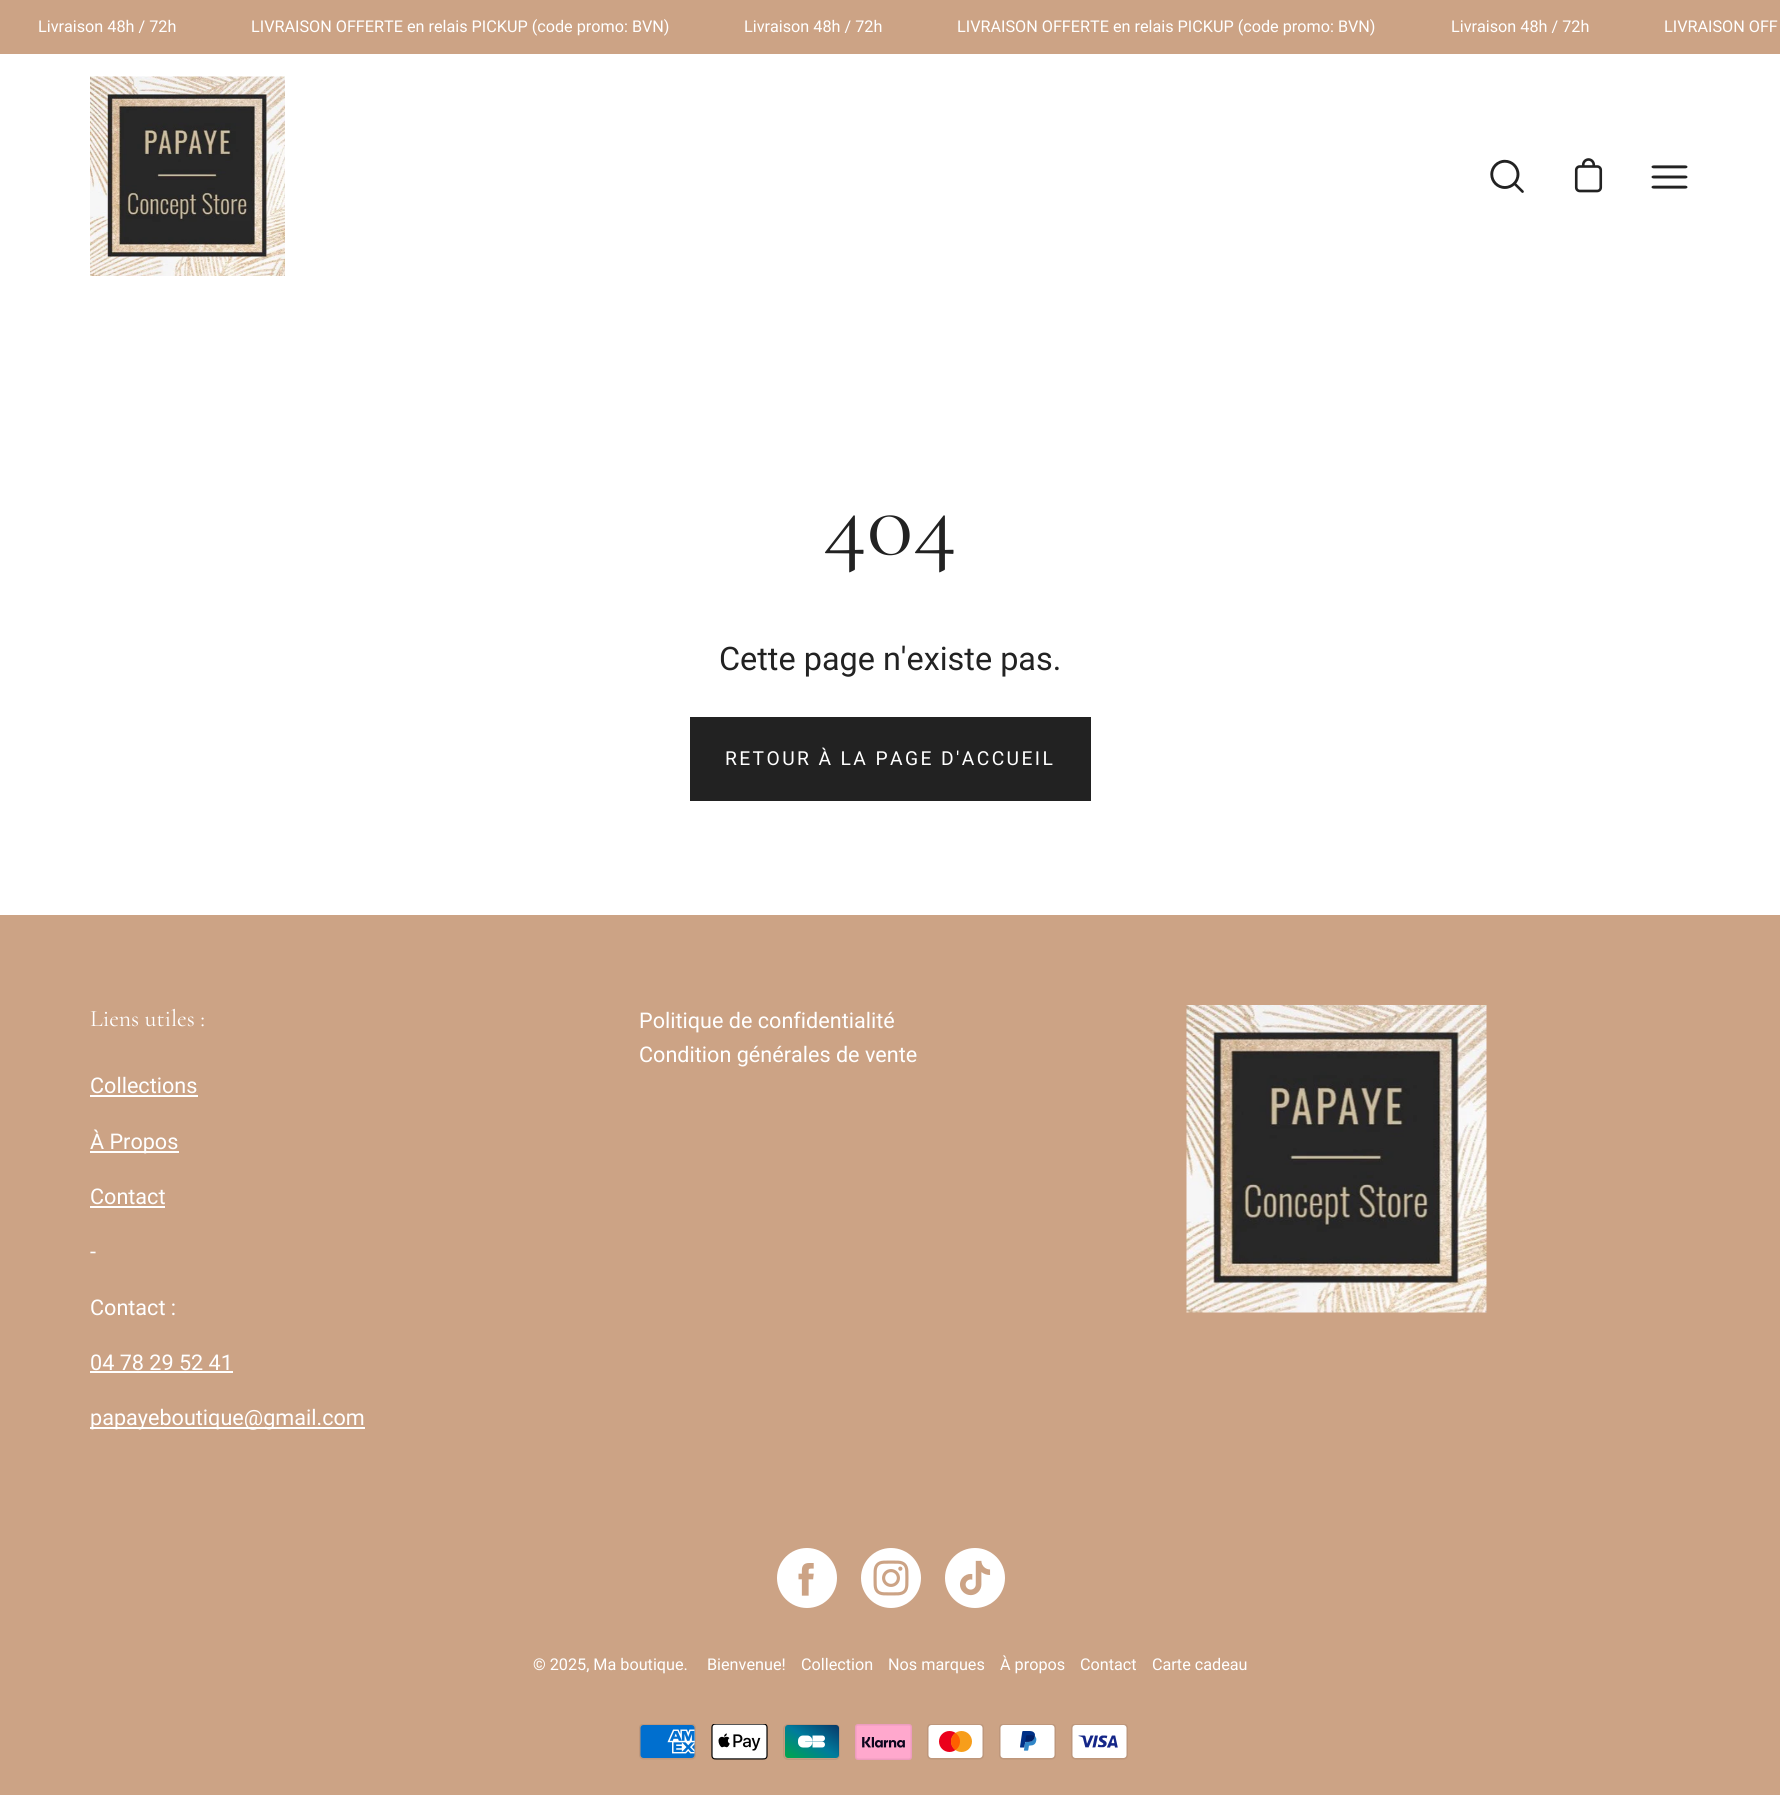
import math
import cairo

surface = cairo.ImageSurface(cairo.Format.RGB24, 1780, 1795)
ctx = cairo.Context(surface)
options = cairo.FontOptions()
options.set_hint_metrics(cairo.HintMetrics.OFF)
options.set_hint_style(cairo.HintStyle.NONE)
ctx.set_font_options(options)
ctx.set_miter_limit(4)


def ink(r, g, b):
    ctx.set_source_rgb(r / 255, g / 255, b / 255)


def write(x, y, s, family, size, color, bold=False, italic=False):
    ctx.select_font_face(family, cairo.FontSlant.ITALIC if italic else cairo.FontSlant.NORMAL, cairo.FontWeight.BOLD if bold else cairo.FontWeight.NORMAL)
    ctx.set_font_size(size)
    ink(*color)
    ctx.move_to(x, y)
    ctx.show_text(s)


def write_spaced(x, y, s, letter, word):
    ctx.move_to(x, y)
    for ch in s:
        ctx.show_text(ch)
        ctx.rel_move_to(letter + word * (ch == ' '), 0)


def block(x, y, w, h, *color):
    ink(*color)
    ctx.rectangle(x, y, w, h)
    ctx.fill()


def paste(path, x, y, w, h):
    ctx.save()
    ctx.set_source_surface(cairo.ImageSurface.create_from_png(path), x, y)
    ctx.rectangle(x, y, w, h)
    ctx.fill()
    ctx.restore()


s1 = dict(family="Roboto", size=16.2, color=(255, 255, 255))
s2 = dict(family="Cormorant", size=97, color=(34, 34, 34))
s3 = dict(family="Roboto", size=32.4, color=(34, 34, 34))
s4 = dict(family="Cormorant", size=23.75, color=(255, 255, 255))
s5 = dict(family="Roboto", size=21.6, color=(255, 255, 255))

ink(255, 255, 255)
ctx.paint()
block(0, 0, 1780, 54, 204, 163, 133)
write(38, 32, "Livraison 48h / 72h", **s1)
write(251, 32, "LIVRAISON OFFERTE en relais PICKUP (code promo: BVN)", **s1)
write(744, 32, "Livraison 48h / 72h", **s1)
write(957, 32, "LIVRAISON OFFERTE en relais PICKUP (code promo: BVN)", **s1)
write(1451, 32, "Livraison 48h / 72h", **s1)
write(1664, 32, "LIVRAISON OFF", **s1)
paste("pic1.png", 90, 76, 195, 200)
paste("pic2.png", 1490, 159, 34, 34)
paste("pic3.png", 1574, 158, 29, 35)
paste("pic4.png", 1651, 165, 37, 24)
write(823, 554, "404", **s2)
write(719, 670, "Cette page n'existe pas.", **s3)
block(690, 717, 401, 84, 34, 34, 34)
ctx.set_font_size(19.25)
ink(255, 255, 255)
write_spaced(725, 765, "RETOUR À LA PAGE D'ACCUEIL", 2.4, 0)
block(0, 915, 1780, 880, 204, 163, 133)
write(90, 1026, "Liens utiles :", **s4)
write(90, 1093, "Collections", **s5)
block(90, 1095, 108, 2, 255, 255, 255)
block(90, 1151, 89, 2, 255, 255, 255)
write(90, 1149, "À Propos", **s5)
write(90, 1204, "Contact", **s5)
block(90, 1206, 75, 2, 255, 255, 255)
write(90, 1259, "-", **s5)
write(90, 1315, "Contact :", **s5)
write(90, 1370, "04 78 29 52 41", **s5)
block(90, 1371, 143, 2, 255, 255, 255)
block(90, 1427, 275, 2, 255, 255, 255)
write(90, 1425, "papayeboutique@gmail.com", **s5)
write(639, 1028, "Politique de confidentialité", **s5)
write(639, 1062, "Condition générales de vente", **s5)
paste("pic5.png", 1186, 1005, 301, 308)
paste("pic6.png", 777, 1548, 60, 60)
paste("pic7.png", 861, 1548, 60, 60)
paste("pic8.png", 945, 1548, 60, 60)
write(533, 1670, "© 2025, Ma boutique.", **s1)
write(707, 1670, "Bienvenue!", **s1)
write(801, 1670, "Collection", **s1)
write(888, 1670, "Nos marques", **s1)
write(1000, 1670, "À propos", **s1)
write(1080, 1670, "Contact", **s1)
write(1152, 1670, "Carte cadeau", **s1)
paste("pic9.png", 639, 1724, 57, 36)
paste("pic10.png", 711, 1724, 57, 36)
paste("pic11.png", 783, 1724, 57, 36)
paste("pic12.png", 855, 1724, 57, 36)
paste("pic13.png", 927, 1724, 57, 36)
paste("pic14.png", 999, 1724, 57, 36)
paste("pic15.png", 1071, 1724, 57, 36)
surface.write_to_png("screenshot.png")
